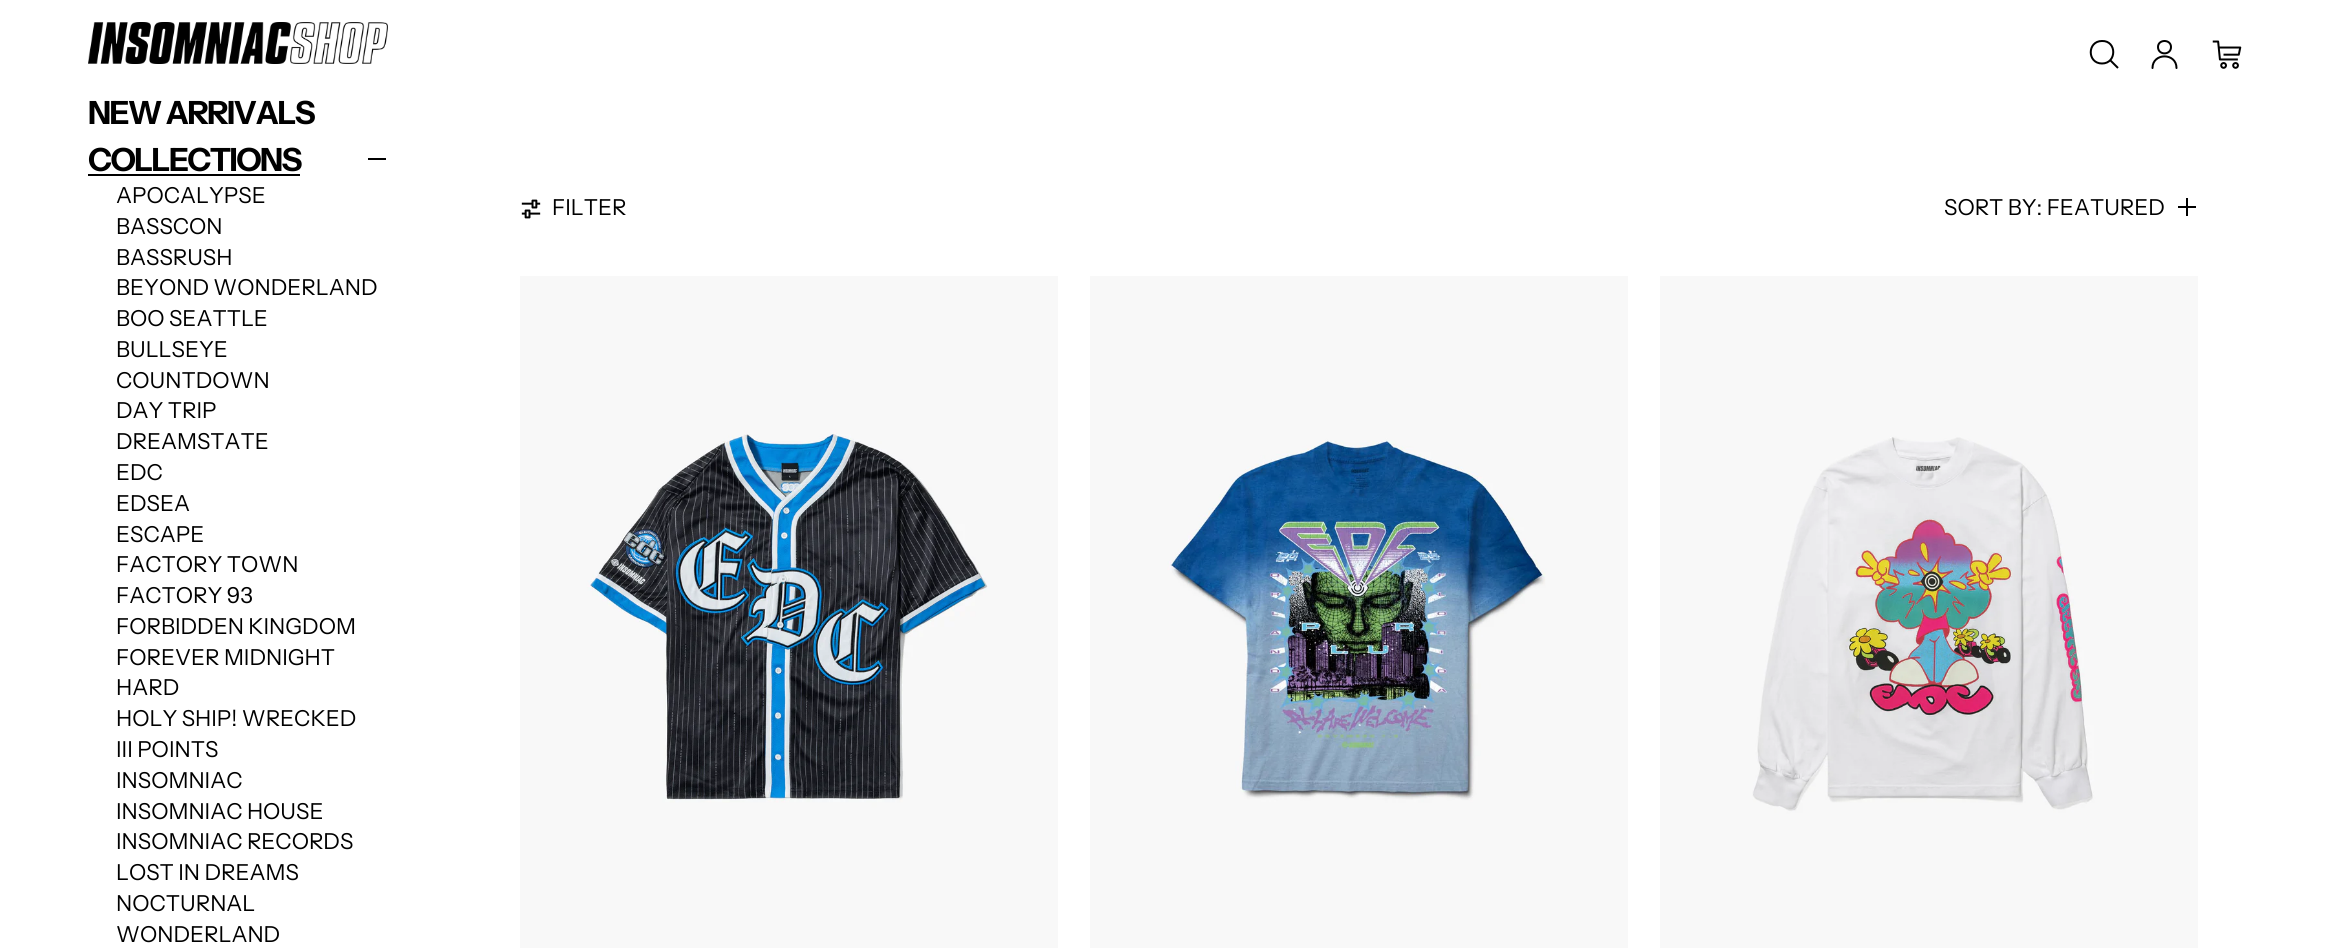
import math
import cairo

surface = cairo.ImageSurface(cairo.Format.RGB24, 2330, 948)
ctx = cairo.Context(surface)
options = cairo.FontOptions()
options.set_hint_metrics(cairo.HintMetrics.OFF)
options.set_hint_style(cairo.HintStyle.NONE)
ctx.set_font_options(options)
ctx.set_miter_limit(4)


def ink(r, g, b):
    ctx.set_source_rgb(r / 255, g / 255, b / 255)


def write(x, y, s, family, size, color, bold=False, italic=False):
    ctx.select_font_face(family, cairo.FontSlant.ITALIC if italic else cairo.FontSlant.NORMAL, cairo.FontWeight.BOLD if bold else cairo.FontWeight.NORMAL)
    ctx.set_font_size(size)
    ink(*color)
    ctx.move_to(x, y)
    ctx.show_text(s)


def write_spaced(x, y, s, letter, word):
    ctx.move_to(x, y)
    for ch in s:
        ctx.show_text(ch)
        ctx.rel_move_to(letter + word * (ch == ' '), 0)


def block(x, y, w, h, *color):
    ink(*color)
    ctx.rectangle(x, y, w, h)
    ctx.fill()


def paste(path, x, y, w, h):
    ctx.save()
    ctx.set_source_surface(cairo.ImageSurface.create_from_png(path), x, y)
    ctx.rectangle(x, y, w, h)
    ctx.fill()
    ctx.restore()


s1 = dict(family="Instrument Sans", size=22, color=(0, 0, 0))

ink(255, 255, 255)
ctx.paint()
paste("pic1.png", 88, 22, 300, 42)
ctx.select_font_face("Instrument Sans", cairo.FontSlant.NORMAL, cairo.FontWeight.BOLD)
ctx.set_font_size(32)
ink(0, 0, 0)
write_spaced(88, 124, "NEW ARRIVALS", -1.6, 0)
write_spaced(88, 171, "COLLECTIONS", -1.6, 0)
block(88, 174, 212, 2, 0, 0, 0)
block(368, 158, 18, 2, 0, 0, 0)
write(116, 203, "APOCALYPSE", **s1)
write(116, 234, "BASSCON", **s1)
write(116, 265, "BASSRUSH", **s1)
write(116, 295, "BEYOND WONDERLAND", **s1)
write(116, 326, "BOO SEATTLE", **s1)
write(116, 357, "BULLSEYE", **s1)
write(116, 388, "COUNTDOWN", **s1)
write(116, 418, "DAY TRIP", **s1)
write(116, 449, "DREAMSTATE", **s1)
write(116, 480, "EDC", **s1)
write(116, 511, "EDSEA", **s1)
write(116, 542, "ESCAPE", **s1)
write(116, 572, "FACTORY TOWN", **s1)
write(116, 603, "FACTORY 93", **s1)
write(116, 634, "FORBIDDEN KINGDOM", **s1)
write(116, 665, "FOREVER MIDNIGHT", **s1)
write(116, 695, "HARD", **s1)
write(116, 726, "HOLY SHIP! WRECKED", **s1)
write(116, 757, "III POINTS", **s1)
write(116, 788, "INSOMNIAC", **s1)
write(116, 819, "INSOMNIAC HOUSE", **s1)
write(116, 849, "INSOMNIAC RECORDS", **s1)
write(116, 880, "LOST IN DREAMS", **s1)
write(116, 911, "NOCTURNAL", **s1)
write(116, 942, "WONDERLAND", **s1)
ctx.new_path()
ctx.move_to(2102, 63.5)
ctx.curve_to(2117, 63.5, 2117, 40.5, 2102, 41)
ctx.curve_to(2087, 41, 2087, 63.5, 2102, 63.5)
ctx.close_path()
ctx.move_to(2110, 60)
ctx.line_to(2118, 68)
ctx.stroke()
ctx.new_path()
ctx.move_to(2158, 47)
ctx.curve_to(2158, 55.5, 2171, 55.5, 2171, 47)
ctx.curve_to(2171, 39, 2158, 39, 2158, 47)
ctx.close_path()
ctx.move_to(2152.5, 68)
ctx.curve_to(2152.5, 52.5, 2176.5, 52.5, 2176.5, 68)
ctx.set_line_cap(cairo.LineCap.ROUND)
ctx.set_line_join(cairo.LineJoin.ROUND)
ctx.stroke()
paste("pic2.png", 2212, 40, 30, 29)
paste("pic3.png", 521, 199, 20, 20)
write(552, 215, "FILTER", **s1)
write(1944, 215, "SORT BY: FEATURED", **s1)
ctx.new_path()
ctx.move_to(2178, 207)
ctx.line_to(2196, 207)
ctx.move_to(2187, 198)
ctx.line_to(2187, 216)
ctx.set_line_cap(cairo.LineCap.BUTT)
ctx.stroke()
paste("pic4.png", 520, 276, 538, 672)
paste("pic5.png", 1090, 276, 538, 672)
paste("pic6.png", 1660, 276, 538, 672)
surface.write_to_png("screenshot.png")
